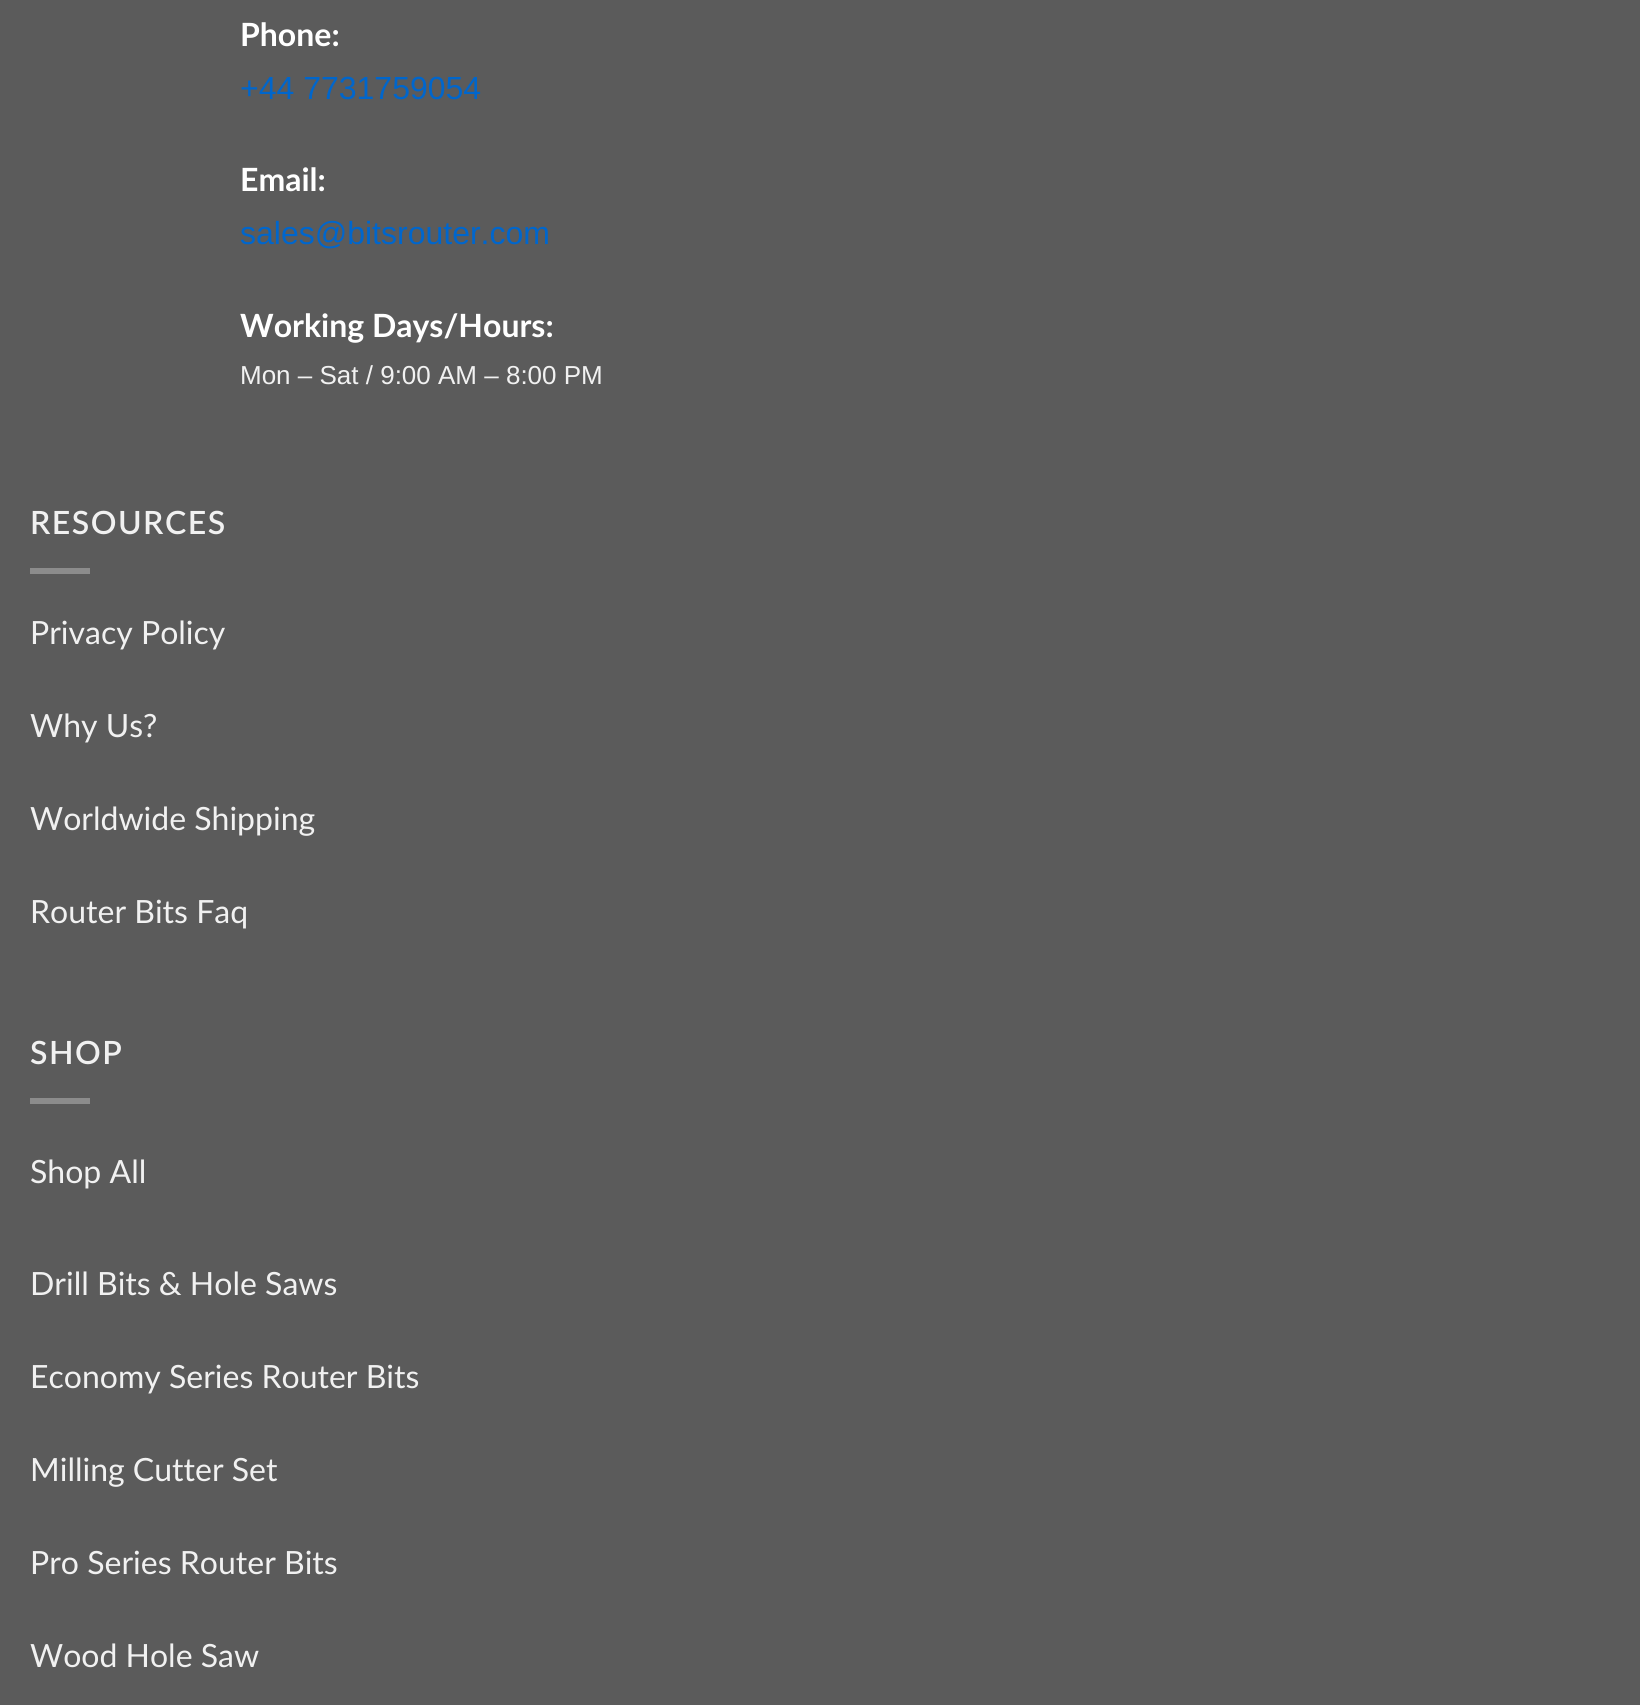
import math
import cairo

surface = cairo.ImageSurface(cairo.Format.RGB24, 1640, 1705)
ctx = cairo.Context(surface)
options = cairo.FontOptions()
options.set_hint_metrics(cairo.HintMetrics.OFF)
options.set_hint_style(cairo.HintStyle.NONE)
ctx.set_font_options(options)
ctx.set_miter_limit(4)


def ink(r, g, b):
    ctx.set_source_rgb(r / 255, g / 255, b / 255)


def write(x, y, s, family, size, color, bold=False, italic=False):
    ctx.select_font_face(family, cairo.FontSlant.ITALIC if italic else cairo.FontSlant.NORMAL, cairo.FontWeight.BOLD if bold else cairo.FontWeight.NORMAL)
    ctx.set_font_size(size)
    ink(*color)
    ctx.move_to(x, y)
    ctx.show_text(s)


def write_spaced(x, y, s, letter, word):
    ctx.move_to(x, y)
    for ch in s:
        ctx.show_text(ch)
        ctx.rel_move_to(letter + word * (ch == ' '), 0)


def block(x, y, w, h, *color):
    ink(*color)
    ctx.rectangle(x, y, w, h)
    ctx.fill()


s1 = dict(family="Lato", size=32, color=(255, 255, 255), bold=True)
s2 = dict(family="Liberation Sans", size=32, color=(0, 102, 204))
s3 = dict(family="Liberation Sans", size=26, color=(241, 241, 241))
s4 = dict(family="Lato", size=32, color=(241, 241, 241))

ink(91, 91, 91)
ctx.paint()
write(240, 46, "Phone:", **s1)
write(240, 99, "+44 7731759054", **s2)
write(240, 191, "Email:", **s1)
write(240, 244, "sales@bitsrouter.com", **s2)
write(240, 337, "Working Days/Hours:", **s1)
write(240, 384, "Mon – Sat / 9:00 AM – 8:00 PM", **s3)
ctx.select_font_face("Lato SemiBold")
ctx.set_font_size(32)
write_spaced(30, 534, "RESOURCES", 1.5, 0)
block(30, 568, 60, 6, 140, 140, 140)
write(30, 644, "Privacy Policy", **s4)
write(30, 737, "Why Us?", **s4)
write(30, 830, "Worldwide Shipping", **s4)
write(30, 923, "Router Bits Faq", **s4)
ctx.select_font_face("Lato SemiBold")
write_spaced(30, 1064, "SHOP", 1.5, 0)
block(30, 1098, 60, 6, 140, 140, 140)
write(30, 1183, "Shop All", **s4)
write(30, 1295, "Drill Bits & Hole Saws", **s4)
write(30, 1388, "Economy Series Router Bits", **s4)
write(30, 1481, "Milling Cutter Set", **s4)
write(30, 1574, "Pro Series Router Bits", **s4)
write(30, 1667, "Wood Hole Saw", **s4)
surface.write_to_png("screenshot.png")
